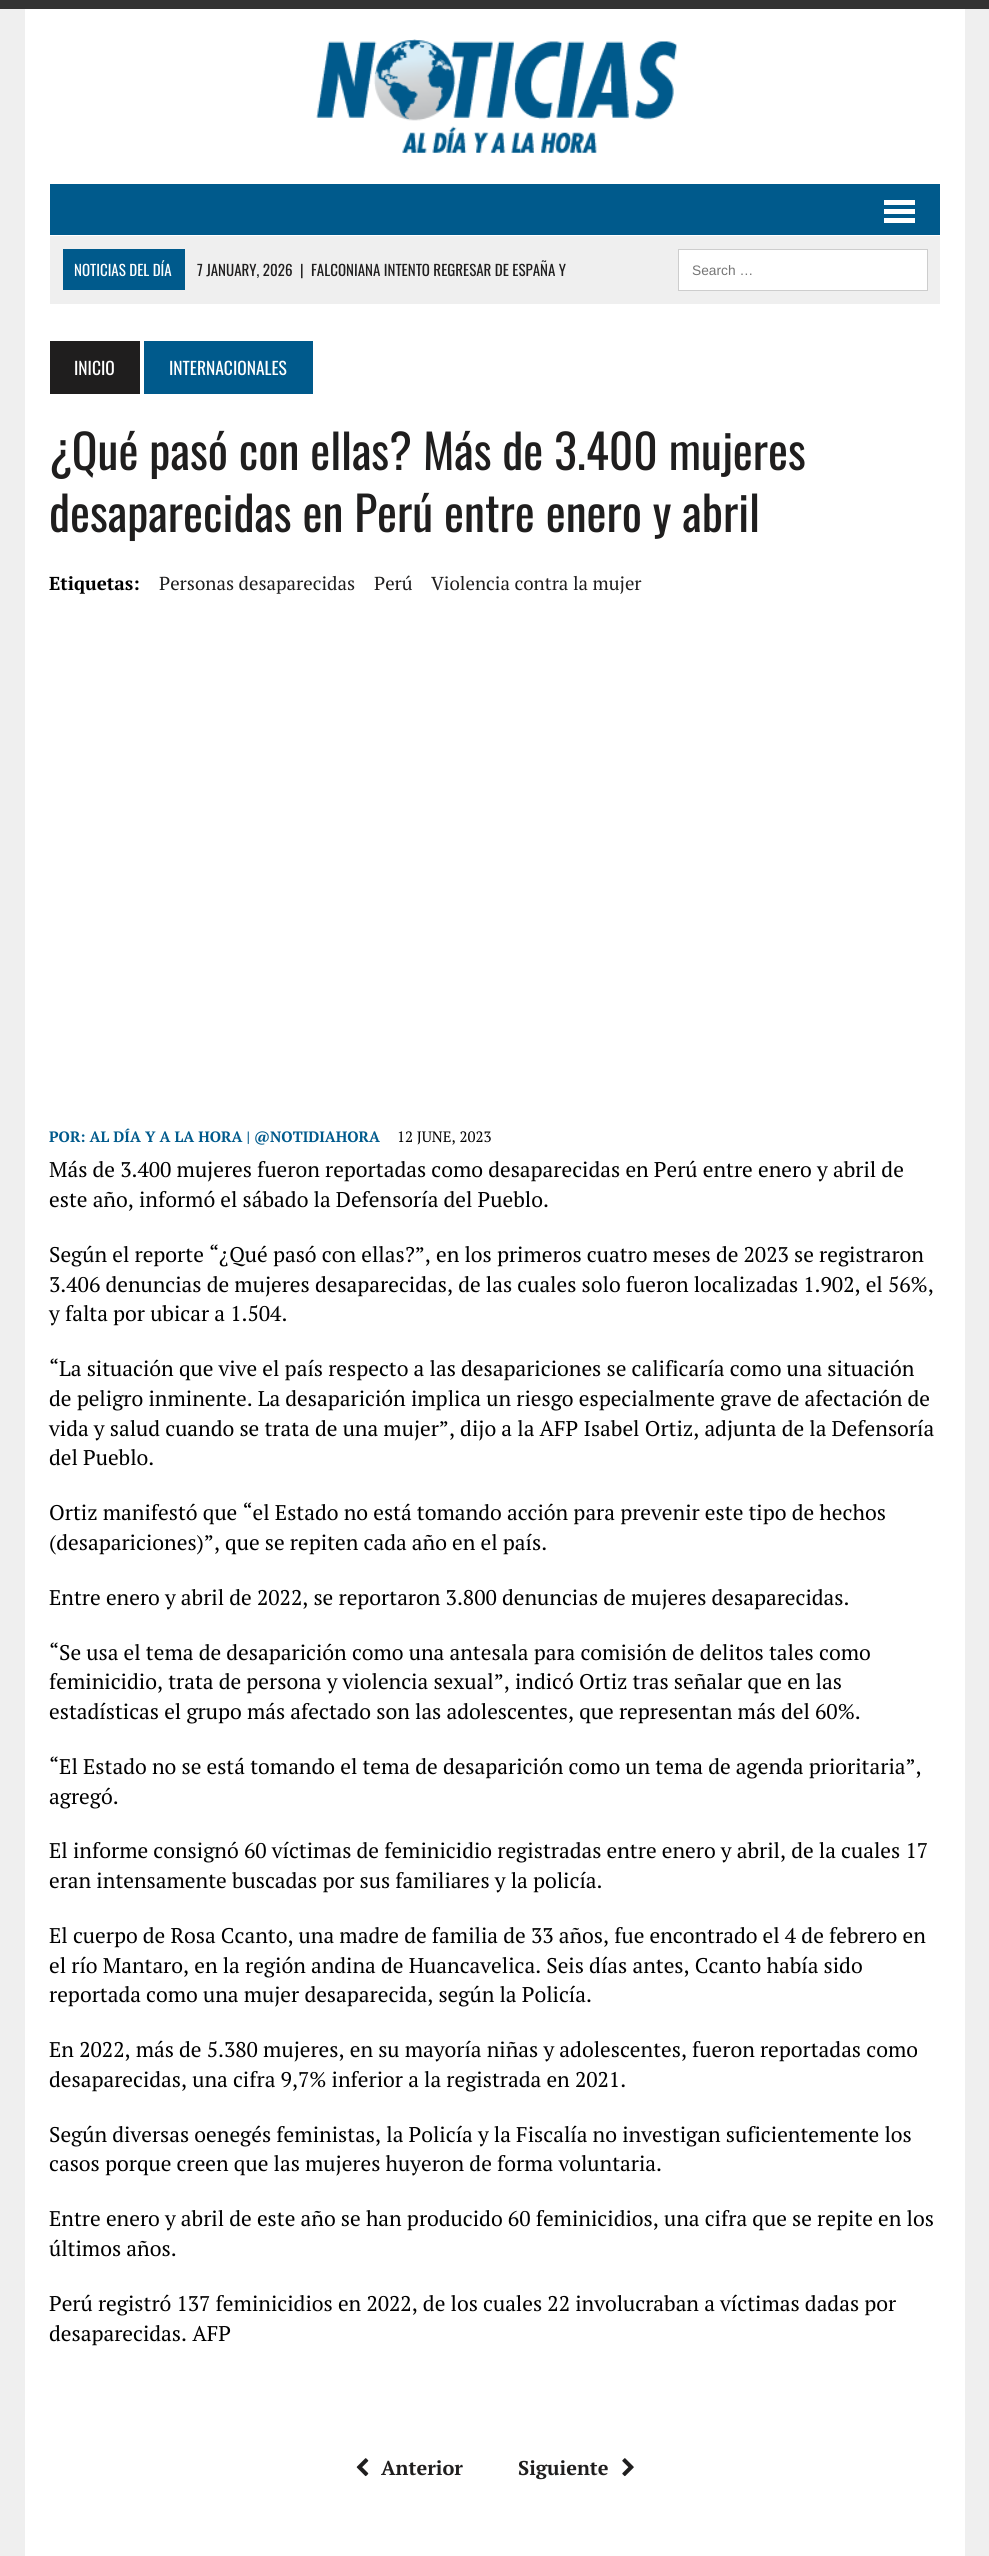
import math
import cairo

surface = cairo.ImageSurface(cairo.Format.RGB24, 989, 2556)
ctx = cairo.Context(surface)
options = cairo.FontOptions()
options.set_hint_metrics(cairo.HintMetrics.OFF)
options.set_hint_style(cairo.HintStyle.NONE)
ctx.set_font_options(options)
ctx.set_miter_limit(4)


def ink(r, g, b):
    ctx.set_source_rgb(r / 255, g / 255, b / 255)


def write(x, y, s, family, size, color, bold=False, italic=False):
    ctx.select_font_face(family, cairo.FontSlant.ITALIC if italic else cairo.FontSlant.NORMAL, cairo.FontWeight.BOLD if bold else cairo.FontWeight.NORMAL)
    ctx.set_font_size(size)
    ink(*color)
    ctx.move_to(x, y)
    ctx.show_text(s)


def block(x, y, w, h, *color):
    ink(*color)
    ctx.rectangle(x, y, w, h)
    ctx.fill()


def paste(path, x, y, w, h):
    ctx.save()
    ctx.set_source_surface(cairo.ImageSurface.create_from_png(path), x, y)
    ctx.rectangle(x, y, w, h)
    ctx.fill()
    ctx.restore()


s1 = dict(family="Oswald", size=15, color=(255, 255, 255))
s2 = dict(family="Oswald", size=15, color=(31, 30, 30))
s3 = dict(family="Liberation Sans", size=13.75, color=(117, 117, 117))
s4 = dict(family="Oswald", size=17.5, color=(255, 255, 255))
s5 = dict(family="Oswald", size=47.5, color=(31, 30, 30))
s6 = dict(family="PT Serif", size=18.75, color=(0, 0, 0), bold=True)
s7 = dict(family="PT Serif", size=18.75, color=(31, 30, 30))
s8 = dict(family="PT Serif", size=15, color=(0, 90, 140), bold=True)
s9 = dict(family="PT Serif", size=15, color=(0, 0, 0))
s10 = dict(family="PT Serif", size=21.25, color=(0, 0, 0))
s11 = dict(family="PT Serif", size=20, color=(31, 30, 30), bold=True)

ink(239, 239, 239)
ctx.paint()
block(0, 0, 989, 9, 51, 51, 51)
block(25, 9, 940, 2547, 255, 255, 255)
paste("pic1.png", 316, 39, 361, 115)
block(50, 184, 890, 51, 0, 90, 140)
block(884, 200, 31, 5, 255, 255, 255)
block(884, 209, 31, 5, 255, 255, 255)
block(884, 218, 31, 5, 255, 255, 255)
block(50, 236, 890, 68, 239, 239, 239)
block(63, 249, 122, 41, 0, 90, 140)
write(74, 276, "NOTICIAS DEL DÍA", **s1)
write(197, 276, "7 JANUARY, 2026", **s2)
write(300, 276, "|", **s2)
write(311, 276, "FALCONIANA INTENTO REGRESAR DE ESPAÑA Y", **s2)
ink(255, 255, 255)
ctx.rectangle(678.5, 249.5, 249, 41)
ctx.fill_preserve()
ink(205, 205, 205)
ctx.set_line_width(1)
ctx.stroke()
write(692, 275, "Search …", **s3)
block(50, 341, 90, 53, 31, 30, 30)
write(74, 375, "INICIO", **s4)
block(144, 341, 169, 53, 0, 90, 140)
write(169, 375, "INTERNACIONALES", **s4)
write(49, 470, "¿Qué pasó con ellas? Más de 3.400 mujeres", **s5)
write(49, 532, "desaparecidas en Perú entre enero y abril", **s5)
write(49, 590, "Etiquetas:", **s6)
write(159, 590, "Personas desaparecidas", **s7)
write(374, 590, "Perú", **s7)
write(431, 590, "Violencia contra la mujer", **s7)
write(49, 1142, "POR: AL DÍA Y A LA HORA | @NOTIDIAHORA", **s8)
write(397, 1142, "12 JUNE, 2023", **s9)
write(49, 1177, "Más de 3.400 mujeres fueron reportadas como desaparecidas en Perú entre enero y abril de", **s10)
write(49, 1207, "este año, informó el sábado la Defensoría del Pueblo.", **s10)
write(49, 1262, "Según el reporte “¿Qué pasó con ellas?”, en los primeros cuatro meses de 2023 se registraron", **s10)
write(49, 1292, "3.406 denuncias de mujeres desaparecidas, de las cuales solo fueron localizadas 1.902, el 56%,", **s10)
write(49, 1321, "y falta por ubicar a 1.504.", **s10)
write(49, 1376, "“La situación que vive el país respecto a las desapariciones se calificaría como una situación", **s10)
write(49, 1406, "de peligro inminente. La desaparición implica un riesgo especialmente grave de afectación de", **s10)
write(49, 1436, "vida y salud cuando se trata de una mujer”, dijo a la AFP Isabel Ortiz, adjunta de la Defensoría", **s10)
write(49, 1465, "del Pueblo.", **s10)
write(49, 1520, "Ortiz manifestó que “el Estado no está tomando acción para prevenir este tipo de hechos", **s10)
write(49, 1550, "(desapariciones)”, que se repiten cada año en el país.", **s10)
write(49, 1605, "Entre enero y abril de 2022, se reportaron 3.800 denuncias de mujeres desaparecidas.", **s10)
write(49, 1660, "“Se usa el tema de desaparición como una antesala para comisión de delitos tales como", **s10)
write(49, 1689, "feminicidio, trata de persona y violencia sexual”, indicó Ortiz tras señalar que en las", **s10)
write(49, 1719, "estadísticas el grupo más afectado son las adolescentes, que representan más del 60%.", **s10)
write(49, 1774, "“El Estado no se está tomando el tema de desaparición como un tema de agenda prioritaria”,", **s10)
write(49, 1804, "agregó.", **s10)
write(49, 1858, "El informe consignó 60 víctimas de feminicidio registradas entre enero y abril, de la cuales 17", **s10)
write(49, 1888, "eran intensamente buscadas por sus familiares y la policía.", **s10)
write(49, 1943, "El cuerpo de Rosa Ccanto, una madre de familia de 33 años, fue encontrado el 4 de febrero en", **s10)
write(49, 1973, "el río Mantaro, en la región andina de Huancavelica. Seis días antes, Ccanto había sido", **s10)
write(49, 2002, "reportada como una mujer desaparecida, según la Policía.", **s10)
write(49, 2057, "En 2022, más de 5.380 mujeres, en su mayoría niñas y adolescentes, fueron reportadas como", **s10)
write(49, 2087, "desaparecidas, una cifra 9,7% inferior a la registrada en 2021.", **s10)
write(49, 2142, "Según diversas oenegés feministas, la Policía y la Fiscalía no investigan suficientemente los", **s10)
write(49, 2171, "casos porque creen que las mujeres huyeron de forma voluntaria.", **s10)
write(49, 2226, "Entre enero y abril de este año se han producido 60 feminicidios, una cifra que se repite en los", **s10)
write(49, 2256, "últimos años.", **s10)
write(49, 2311, "Perú registró 137 feminicidios en 2022, de los cuales 22 involucraban a víctimas dadas por", **s10)
write(49, 2341, "desaparecidas. AFP", **s10)
paste("pic2.png", 356, 2458, 13, 19)
write(381, 2475, "Anterior", **s11)
write(518, 2475, "Siguiente", **s11)
paste("pic3.png", 622, 2458, 12, 19)
surface.write_to_png("screenshot.png")
